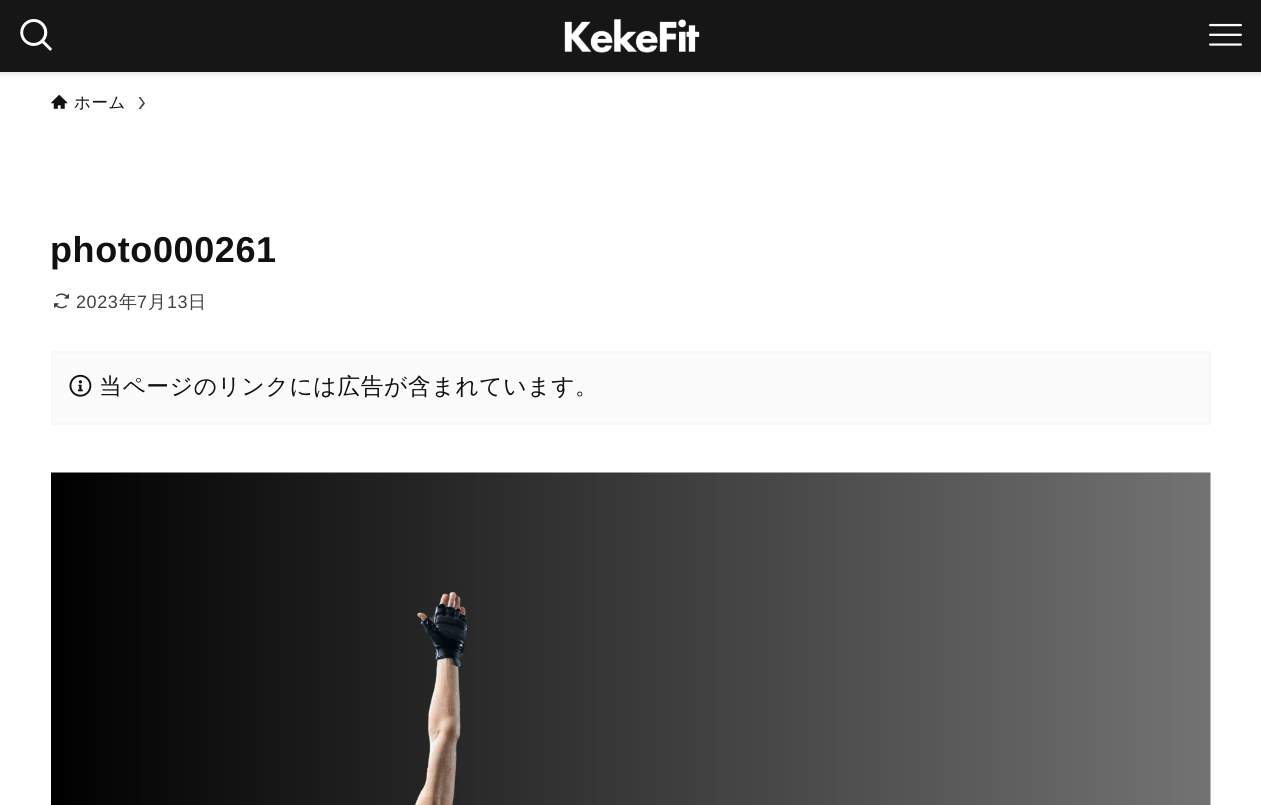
import math
import cairo

surface = cairo.ImageSurface(cairo.Format.RGB24, 1261, 805)
ctx = cairo.Context(surface)
options = cairo.FontOptions()
options.set_hint_metrics(cairo.HintMetrics.OFF)
options.set_hint_style(cairo.HintStyle.NONE)
ctx.set_font_options(options)
ctx.set_miter_limit(4)


def ink(r, g, b):
    ctx.set_source_rgb(r / 255, g / 255, b / 255)


def write_spaced(x, y, s, letter, word):
    ctx.move_to(x, y)
    for ch in s:
        ctx.show_text(ch)
        ctx.rel_move_to(letter + word * (ch == ' '), 0)


def block(x, y, w, h, *color):
    ink(*color)
    ctx.rectangle(x, y, w, h)
    ctx.fill()


def round_path(x, y, w, h, r):
    ctx.new_sub_path()
    for i, (u, v) in enumerate([(x + w - r, y + h - r), (x + r, y + h - r), (x + r, y + r), (x + w - r, y + r)]):
        ctx.arc(u, v, r, i * math.pi / 2, (i + 1) * math.pi / 2)
    ctx.close_path()


def blur_box(x, y, w, h, r, blur, alpha):
    ctx.push_group_with_content(cairo.Content.ALPHA)
    ctx.set_operator(cairo.Operator.SOURCE)
    for i in range(15, -16, -2):
        e = blur * i / 6
        if min(w, h) + 2 * e > 0:
            ctx.set_source_rgba(0, 0, 0, alpha * math.erfc((i - 1) / 8.5) / 2)
            round_path(x - e, y - e, w + 2 * e, h + 2 * e, max(0, min(r + e + blur * .6, min(w, h) / 2 + e)))
            ctx.fill()
    ctx.mask(ctx.pop_group())


def paste(path, x, y, w, h):
    ctx.save()
    ctx.set_source_surface(cairo.ImageSurface.create_from_png(path), x, y)
    ctx.rectangle(x, y, w, h)
    ctx.fill()
    ctx.restore()


ink(255, 255, 255)
ctx.paint()
ink(0, 0, 0)
blur_box(0, 2, 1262, 72, 0, 3, 0.12)
block(0, 0, 1261, 72, 22, 22, 22)
paste("pic1.png", 20, 19, 32, 32)
paste("pic2.png", 564, 19, 136, 34)
paste("pic3.png", 1209, 23, 33, 23)
paste("pic4.png", 51, 94, 17, 15)
ctx.select_font_face("WenQuanYi Zen Hei Medium")
ctx.set_font_size(16.5)
ink(17, 17, 17)
write_spaced(74, 108, "ホーム", 0.6, 0)
ink(65, 65, 65)
ctx.new_path()
ctx.move_to(140.5, 97)
ctx.line_to(138.5, 97)
ctx.line_to(143, 103)
ctx.line_to(138.5, 109)
ctx.line_to(140.5, 109)
ctx.line_to(145, 103.5)
ctx.close_path()
ctx.fill()
ctx.select_font_face("Liberation Sans", cairo.FontSlant.NORMAL, cairo.FontWeight.BOLD)
ctx.set_font_size(36)
ink(17, 17, 17)
write_spaced(50, 262, "photo000261", 0.6, 0)
paste("pic5.png", 54, 293, 15, 16)
ctx.select_font_face("Liberation Sans")
ctx.set_font_size(18)
ink(65, 65, 65)
write_spaced(76, 308, "2023", 0.6, 0)
ctx.select_font_face("WenQuanYi Zen Hei Medium")
write_spaced(119, 308, "年", 0.6, 0)
ctx.select_font_face("Liberation Sans")
write_spaced(137, 308, "7", 0.6, 0)
ctx.select_font_face("WenQuanYi Zen Hei Medium")
write_spaced(148, 308, "月", 0.6, 0)
ctx.select_font_face("Liberation Sans")
write_spaced(167, 308, "13", 0.6, 0)
ctx.select_font_face("WenQuanYi Zen Hei Medium")
write_spaced(188, 308, "日", 0.6, 0)
ink(251, 251, 251)
round_path(52, 352, 1158, 72, 0.5)
ctx.fill_preserve()
ink(247, 247, 247)
ctx.stroke()
paste("pic6.png", 69, 374, 23, 23)
ctx.set_font_size(22.8)
ink(17, 17, 17)
write_spaced(99, 394, "当ページのリンクには広告が含まれています。", 0.6, 0)
paste("pic7.png", 51, 472, 1160, 333)
surface.write_to_png("screenshot.png")
